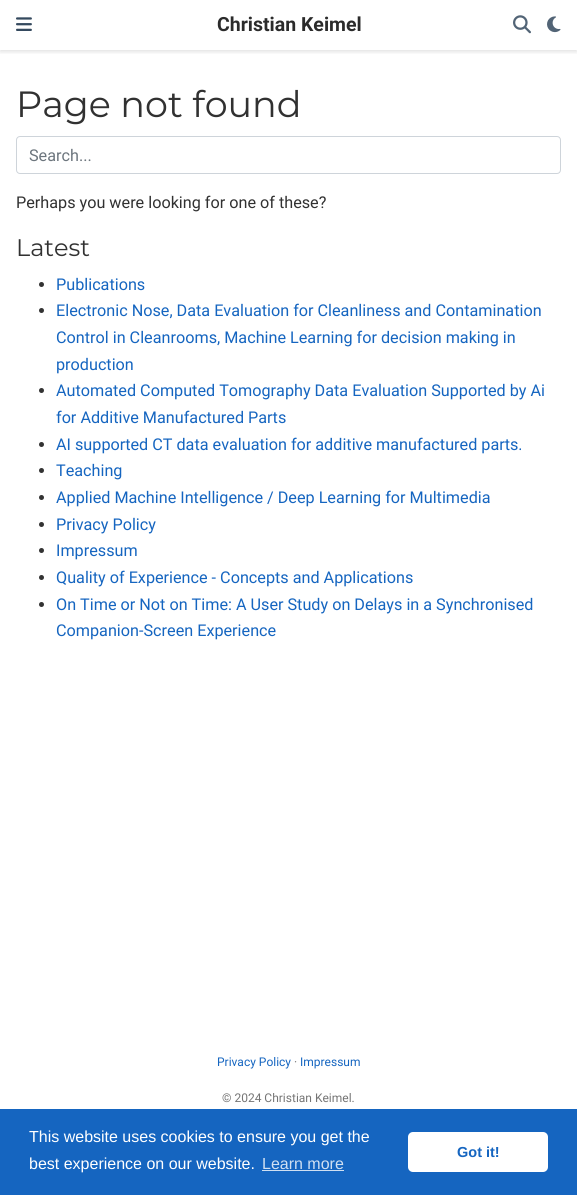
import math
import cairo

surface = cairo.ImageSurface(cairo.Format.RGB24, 577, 1195)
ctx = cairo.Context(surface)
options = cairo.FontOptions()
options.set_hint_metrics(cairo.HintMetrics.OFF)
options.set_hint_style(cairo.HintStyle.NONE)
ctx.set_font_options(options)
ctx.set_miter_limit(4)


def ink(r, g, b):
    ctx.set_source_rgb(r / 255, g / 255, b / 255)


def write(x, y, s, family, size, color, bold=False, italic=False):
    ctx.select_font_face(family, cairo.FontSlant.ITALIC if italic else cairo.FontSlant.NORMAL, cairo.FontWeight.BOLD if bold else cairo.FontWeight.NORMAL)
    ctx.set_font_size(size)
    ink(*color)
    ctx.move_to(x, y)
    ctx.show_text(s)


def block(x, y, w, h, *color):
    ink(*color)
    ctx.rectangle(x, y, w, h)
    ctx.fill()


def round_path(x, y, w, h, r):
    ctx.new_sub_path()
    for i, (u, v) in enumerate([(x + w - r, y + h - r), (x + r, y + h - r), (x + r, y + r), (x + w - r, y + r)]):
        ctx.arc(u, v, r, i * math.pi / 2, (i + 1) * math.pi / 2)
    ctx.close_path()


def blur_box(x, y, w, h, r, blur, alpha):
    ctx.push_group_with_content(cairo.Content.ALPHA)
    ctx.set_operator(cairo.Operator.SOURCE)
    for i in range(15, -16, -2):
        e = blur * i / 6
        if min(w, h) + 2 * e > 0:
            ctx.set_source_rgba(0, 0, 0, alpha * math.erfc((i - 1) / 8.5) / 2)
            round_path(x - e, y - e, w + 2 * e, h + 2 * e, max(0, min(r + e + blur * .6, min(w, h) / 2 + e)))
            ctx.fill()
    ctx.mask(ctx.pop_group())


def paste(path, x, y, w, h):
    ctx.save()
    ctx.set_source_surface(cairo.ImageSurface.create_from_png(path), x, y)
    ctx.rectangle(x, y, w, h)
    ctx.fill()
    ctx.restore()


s1 = dict(family="Roboto", size=19.5, color=(43, 43, 43), bold=True)
s2 = dict(family="Montserrat", size=36.5, color=(49, 49, 49))
s3 = dict(family="Roboto", size=16.2, color=(108, 117, 125))
s4 = dict(family="Roboto", size=16.2, color=(49, 49, 49))
s5 = dict(family="Montserrat", size=24, color=(49, 49, 49))
s6 = dict(family="Roboto", size=16.2, color=(21, 101, 192))
s7 = dict(family="Roboto", size=12, color=(21, 101, 192))
s8 = dict(family="Roboto", size=12, color=(117, 117, 117))
s9 = dict(family="Liberation Sans", size=16, color=(255, 255, 255))
s10 = dict(family="Liberation Sans", size=16, color=(208, 224, 242))
s11 = dict(family="Liberation Sans", size=14.5, color=(21, 101, 192), bold=True)

ink(255, 255, 255)
ctx.paint()
ctx.save()
ctx.rectangle(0, 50, 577, 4)
ctx.clip()
ink(0, 0, 0)
blur_box(0, 2, 577, 50, 0, 2, 0.11)
ctx.restore()
paste("pic1.png", 16, 17, 16, 14)
write(217, 31, "Christian Keimel", **s1)
paste("pic2.png", 513, 15, 18, 19)
paste("pic3.png", 547, 16, 14, 17)
write(16, 117, "Page not found", **s2)
round_path(16.5, 136.5, 544, 37, 3.5)
ink(206, 212, 218)
ctx.set_line_width(1)
ctx.stroke()
write(29, 161, "Search...", **s3)
write(16, 208, "Perhaps you were looking for one of these?", **s4)
write(16, 256, "Latest", **s5)
ink(51, 51, 51)
ctx.new_path()
ctx.arc(41.5, 284.5, 2.5, 0, 2 * math.pi)
ctx.fill()
write(56, 290, "Publications", **s6)
ink(51, 51, 51)
ctx.new_path()
ctx.arc(41.5, 310.5, 2.5, 0, 2 * math.pi)
ctx.fill()
write(56, 316, "Electronic Nose, Data Evaluation for Cleanliness and Contamination", **s6)
write(56, 343, "Control in Cleanrooms, Machine Learning for decision making in", **s6)
write(56, 370, "production", **s6)
ink(51, 51, 51)
ctx.new_path()
ctx.arc(41.5, 390.5, 2.5, 0, 2 * math.pi)
ctx.fill()
write(56, 396, "Automated Computed Tomography Data Evaluation Supported by Ai", **s6)
write(56, 423, "for Additive Manufactured Parts", **s6)
ink(51, 51, 51)
ctx.new_path()
ctx.arc(41.5, 444.5, 2.5, 0, 2 * math.pi)
ctx.fill()
write(56, 450, "AI supported CT data evaluation for additive manufactured parts.", **s6)
ink(51, 51, 51)
ctx.new_path()
ctx.arc(41.5, 470.5, 2.5, 0, 2 * math.pi)
ctx.fill()
write(56, 476, "Teaching", **s6)
ink(51, 51, 51)
ctx.new_path()
ctx.arc(41.5, 497.5, 2.5, 0, 2 * math.pi)
ctx.fill()
write(56, 503, "Applied Machine Intelligence / Deep Learning for Multimedia", **s6)
ink(51, 51, 51)
ctx.new_path()
ctx.arc(41.5, 524.5, 2.5, 0, 2 * math.pi)
ctx.fill()
write(56, 530, "Privacy Policy", **s6)
ink(51, 51, 51)
ctx.new_path()
ctx.arc(41.5, 550.5, 2.5, 0, 2 * math.pi)
ctx.fill()
write(56, 556, "Impressum", **s6)
ink(51, 51, 51)
ctx.new_path()
ctx.arc(41.5, 577.5, 2.5, 0, 2 * math.pi)
ctx.fill()
write(56, 583, "Quality of Experience - Concepts and Applications", **s6)
ink(51, 51, 51)
ctx.new_path()
ctx.arc(41.5, 604.5, 2.5, 0, 2 * math.pi)
ctx.fill()
write(56, 610, "On Time or Not on Time: A User Study on Delays in a Synchronised", **s6)
write(56, 636, "Companion-Screen Experience", **s6)
write(217, 1066, "Privacy Policy", **s7)
write(294, 1066, "·", **s8)
write(300, 1066, "Impressum", **s7)
write(222, 1102, "© 2024 Christian Keimel.", **s8)
block(0, 1109, 577, 86, 21, 101, 192)
write(29, 1142, "This website uses cookies to ensure you get the", **s9)
write(29, 1169, "best experience on our website.", **s9)
write(262, 1169, "Learn more", **s10)
block(262, 1170, 82, 1, 208, 224, 242)
ink(255, 255, 255)
round_path(408, 1132, 140, 40, 5)
ctx.fill()
write(457, 1157, "Got it!", **s11)
surface.write_to_png("screenshot.png")
